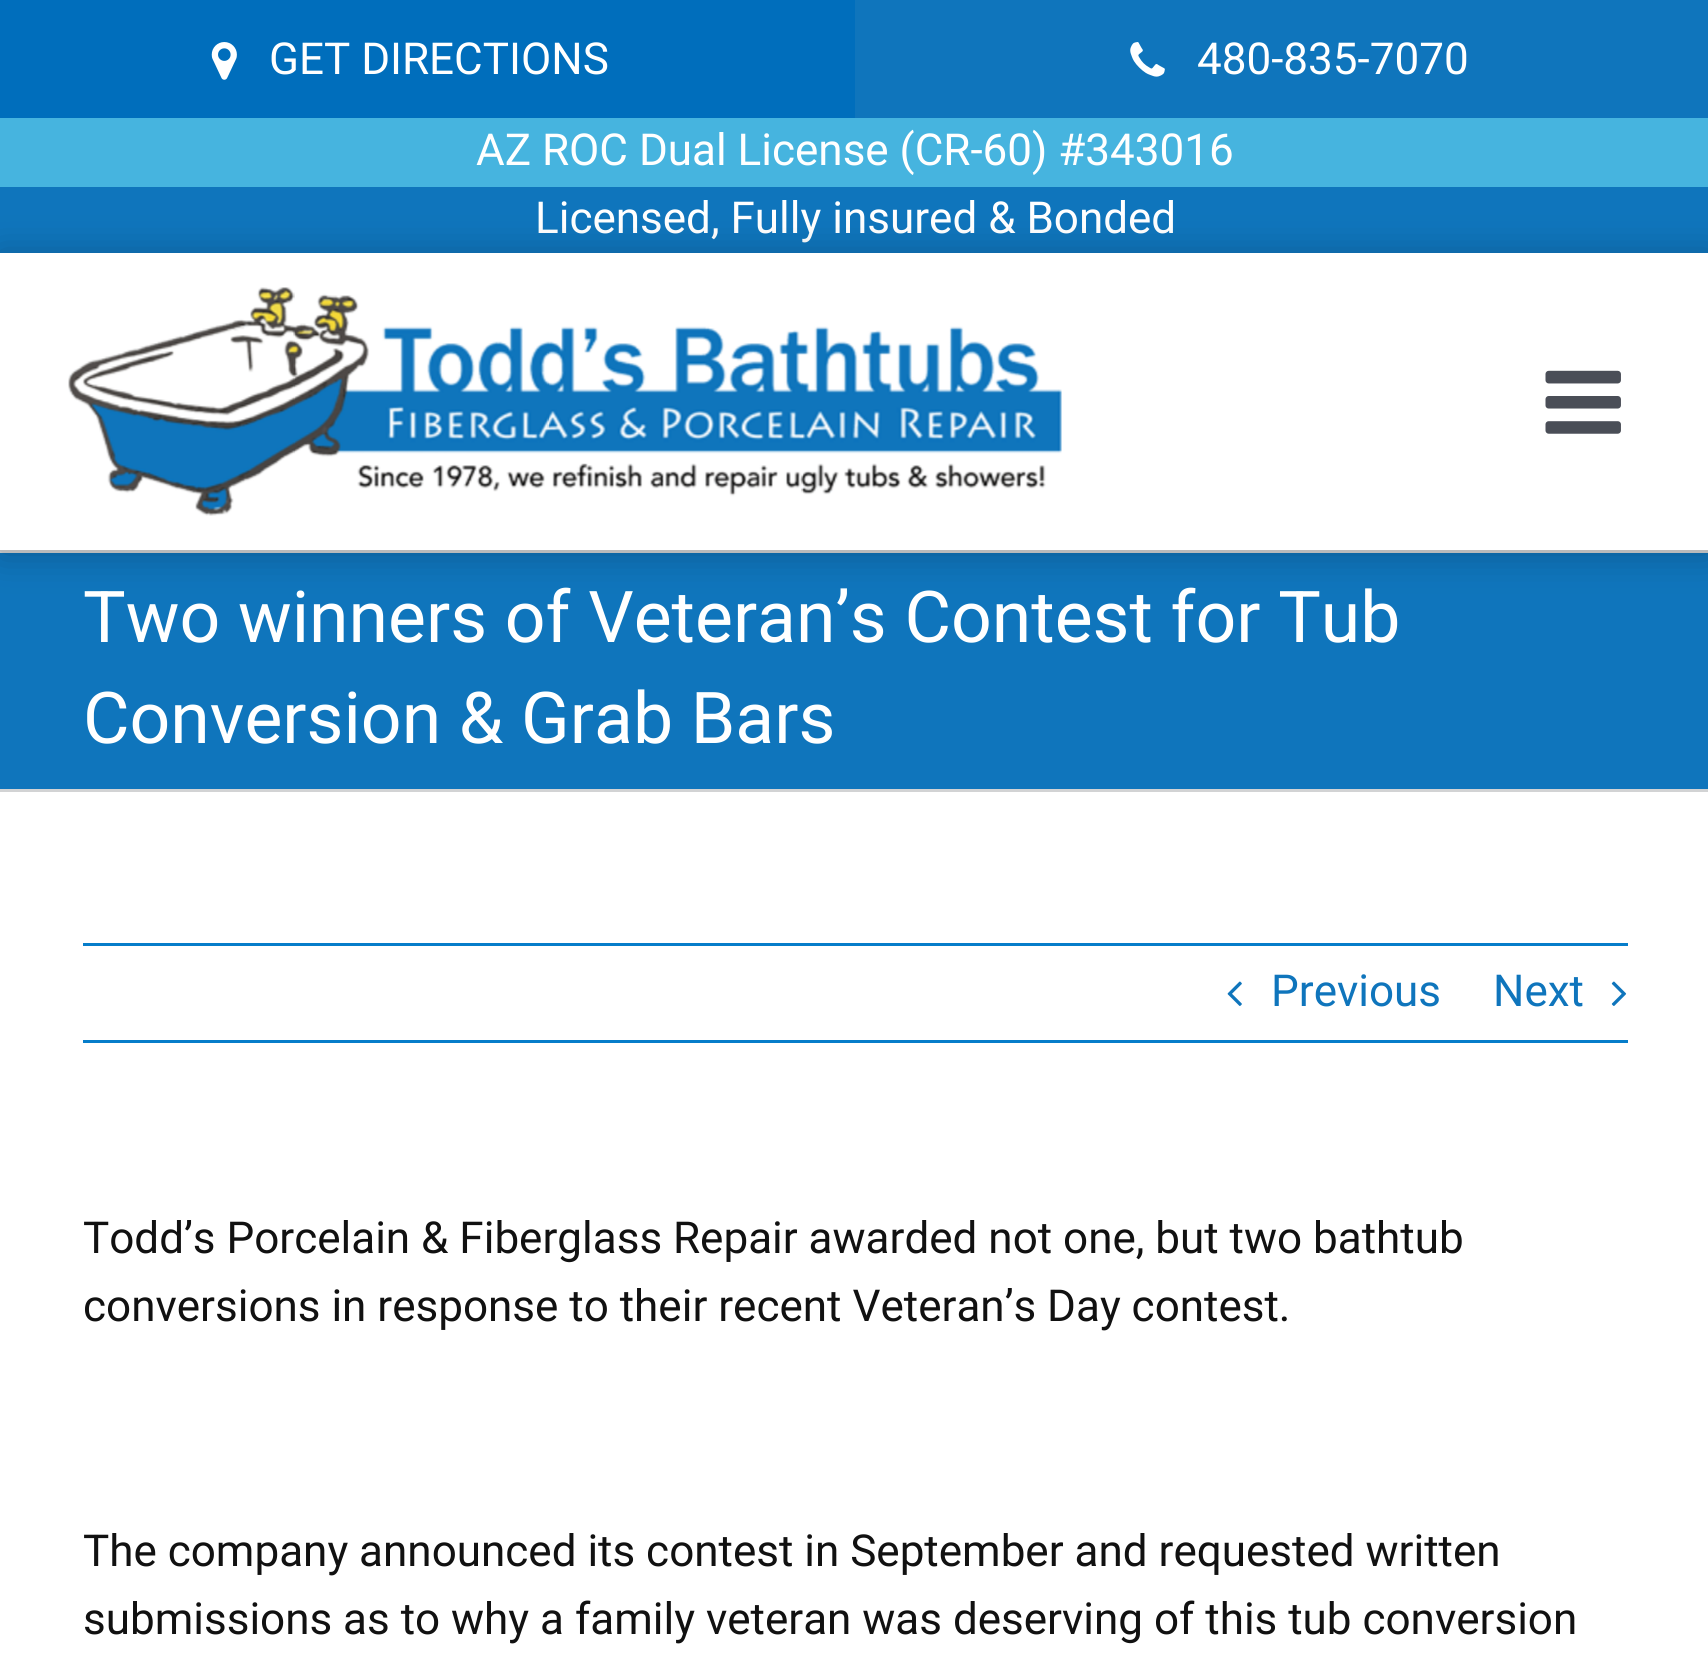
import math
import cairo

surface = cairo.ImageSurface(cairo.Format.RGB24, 1708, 1663)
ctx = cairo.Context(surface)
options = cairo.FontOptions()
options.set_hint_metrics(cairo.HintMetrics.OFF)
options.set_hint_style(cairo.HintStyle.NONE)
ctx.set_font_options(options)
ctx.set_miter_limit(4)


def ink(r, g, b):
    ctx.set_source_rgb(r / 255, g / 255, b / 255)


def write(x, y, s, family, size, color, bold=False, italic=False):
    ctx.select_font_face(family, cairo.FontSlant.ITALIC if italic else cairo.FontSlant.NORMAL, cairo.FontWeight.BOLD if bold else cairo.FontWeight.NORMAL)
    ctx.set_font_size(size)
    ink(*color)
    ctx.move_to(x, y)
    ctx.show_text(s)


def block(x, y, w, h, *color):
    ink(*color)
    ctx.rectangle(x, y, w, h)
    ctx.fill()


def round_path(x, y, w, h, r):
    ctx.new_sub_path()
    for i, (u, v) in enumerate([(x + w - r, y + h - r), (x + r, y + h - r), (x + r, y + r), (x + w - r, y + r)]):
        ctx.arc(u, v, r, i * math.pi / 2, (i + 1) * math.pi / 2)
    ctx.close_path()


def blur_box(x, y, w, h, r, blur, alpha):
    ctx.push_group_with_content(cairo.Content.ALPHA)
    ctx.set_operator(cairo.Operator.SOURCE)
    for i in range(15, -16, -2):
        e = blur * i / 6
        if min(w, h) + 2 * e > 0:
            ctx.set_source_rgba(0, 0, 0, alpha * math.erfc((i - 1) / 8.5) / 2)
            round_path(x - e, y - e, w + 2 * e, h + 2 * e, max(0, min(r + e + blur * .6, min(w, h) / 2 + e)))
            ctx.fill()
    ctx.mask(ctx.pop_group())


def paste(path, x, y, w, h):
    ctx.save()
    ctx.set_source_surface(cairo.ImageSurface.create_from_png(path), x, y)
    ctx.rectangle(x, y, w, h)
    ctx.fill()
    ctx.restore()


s1 = dict(family="Roboto", size=44, color=(255, 255, 255))
s2 = dict(family="Roboto", size=71.5, color=(255, 255, 255))
s3 = dict(family="Roboto", size=44, color=(15, 117, 188))
s4 = dict(family="Roboto", size=44, color=(17, 17, 17))

ink(255, 255, 255)
ctx.paint()
block(0, 0, 855, 118, 0, 110, 188)
paste("pic1.png", 211, 42, 26, 38)
write(269, 74, "GET DIRECTIONS", **s1)
block(855, 0, 853, 118, 15, 117, 188)
paste("pic2.png", 1130, 42, 35, 35)
write(1197, 74, "480-835-7070", **s1)
block(0, 118, 1708, 69, 70, 180, 223)
write(476, 165, "AZ ROC Dual License (CR-60) #343016", **s1)
block(0, 187, 1708, 66, 15, 117, 188)
write(535, 233, "Licensed, Fully insured & Bonded", **s1)
block(0, 553, 1708, 236, 15, 117, 188)
block(0, 550, 1708, 3, 210, 211, 212)
ctx.save()
ctx.set_fill_rule(cairo.FillRule.EVEN_ODD)
ctx.new_path()
ctx.move_to(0, 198)
ctx.line_to(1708, 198)
ctx.line_to(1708, 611)
ctx.line_to(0, 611)
ctx.close_path()
ctx.move_to(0, 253)
ctx.line_to(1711, 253)
ctx.line_to(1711, 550)
ctx.line_to(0, 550)
ctx.close_path()
ctx.clip()
ink(0, 0, 0)
blur_box(0, 256, 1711, 297, 0, 19, 0.24)
ctx.restore()
paste("pic3.png", 68, 287, 994, 229)
paste("pic4.png", 1545, 370, 76, 64)
block(0, 789, 1708, 3, 210, 211, 212)
write(83, 642, "Two winners of Veteran’s Contest for Tub", **s2)
write(83, 743, "Conversion & Grab Bars", **s2)
block(83, 943, 1545, 3, 6, 125, 202)
block(83, 1040, 1545, 3, 6, 125, 202)
paste("pic5.png", 1227, 981, 15, 25)
write(1271, 1006, "Previous", **s3)
write(1493, 1006, "Next", **s3)
paste("pic6.png", 1611, 981, 16, 25)
write(83, 1253, "Todd’s Porcelain & Fiberglass Repair awarded not one, but two bathtub", **s4)
write(83, 1321, "conversions in response to their recent Veteran’s Day contest.", **s4)
write(83, 1566, "The company announced its contest in September and requested written", **s4)
write(83, 1634, "submissions as to why a family veteran was deserving of this tub conversion", **s4)
surface.write_to_png("screenshot.png")
